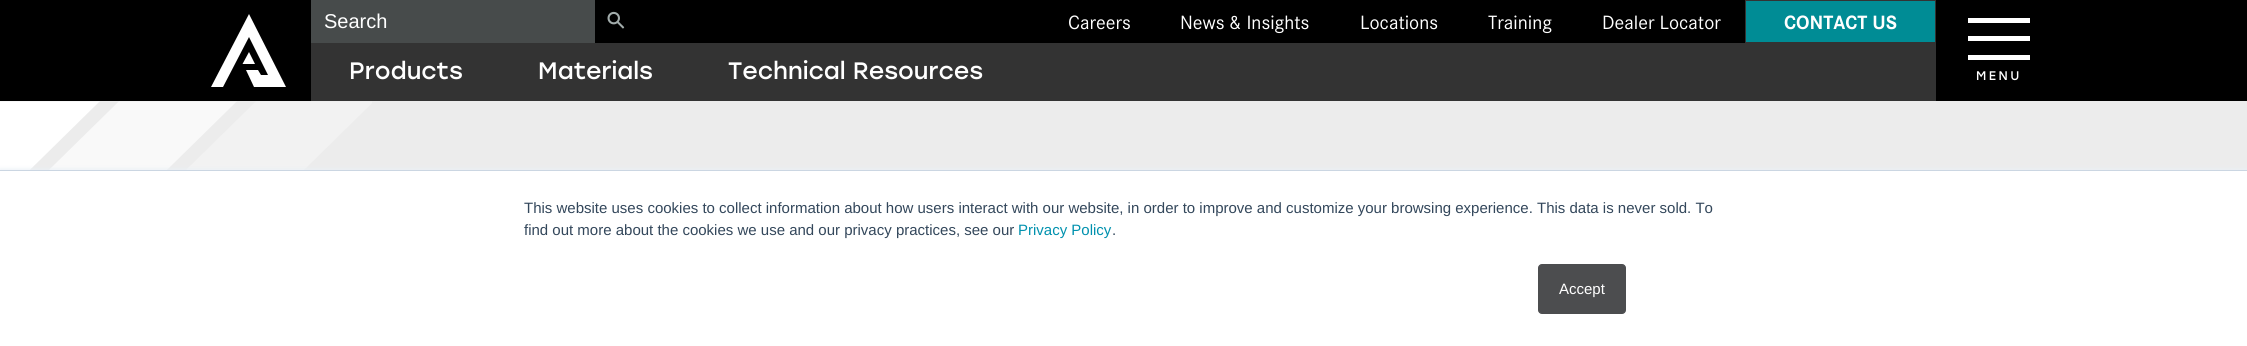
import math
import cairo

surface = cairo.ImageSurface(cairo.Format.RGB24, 2247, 346)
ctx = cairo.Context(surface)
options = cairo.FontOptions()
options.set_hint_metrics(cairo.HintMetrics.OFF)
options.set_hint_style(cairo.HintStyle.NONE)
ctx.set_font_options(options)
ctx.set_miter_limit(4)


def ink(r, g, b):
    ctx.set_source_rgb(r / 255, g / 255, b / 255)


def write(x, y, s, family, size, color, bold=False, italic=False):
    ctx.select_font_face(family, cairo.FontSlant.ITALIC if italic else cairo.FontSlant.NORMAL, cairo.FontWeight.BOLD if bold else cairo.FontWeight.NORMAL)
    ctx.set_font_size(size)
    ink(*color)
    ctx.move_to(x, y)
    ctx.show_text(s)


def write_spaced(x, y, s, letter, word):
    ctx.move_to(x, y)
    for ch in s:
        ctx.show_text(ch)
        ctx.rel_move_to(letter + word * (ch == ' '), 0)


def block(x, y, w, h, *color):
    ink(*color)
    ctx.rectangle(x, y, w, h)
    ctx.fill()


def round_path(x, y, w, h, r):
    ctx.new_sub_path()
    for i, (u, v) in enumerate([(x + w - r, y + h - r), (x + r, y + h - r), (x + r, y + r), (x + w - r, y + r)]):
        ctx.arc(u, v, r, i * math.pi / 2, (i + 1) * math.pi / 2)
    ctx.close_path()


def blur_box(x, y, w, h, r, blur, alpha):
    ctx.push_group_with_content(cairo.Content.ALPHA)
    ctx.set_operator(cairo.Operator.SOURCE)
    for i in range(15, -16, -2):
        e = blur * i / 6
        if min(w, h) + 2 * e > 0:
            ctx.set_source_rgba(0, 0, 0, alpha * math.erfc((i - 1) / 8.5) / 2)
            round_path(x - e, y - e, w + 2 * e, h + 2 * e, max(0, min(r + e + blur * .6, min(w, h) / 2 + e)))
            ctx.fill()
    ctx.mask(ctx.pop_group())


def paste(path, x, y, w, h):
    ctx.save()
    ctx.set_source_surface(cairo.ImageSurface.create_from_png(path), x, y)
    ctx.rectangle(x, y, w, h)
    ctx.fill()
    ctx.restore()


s1 = dict(family="Liberation Sans", size=20, color=(255, 255, 255))
s2 = dict(family="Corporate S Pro", size=20, color=(255, 255, 255))
s3 = dict(family="Corporate S Pro", size=20, color=(255, 255, 255), bold=True)
s4 = dict(family="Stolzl", size=23.75, color=(255, 255, 255))
s5 = dict(family="Liberation Sans", size=15, color=(51, 71, 91))
s6 = dict(family="Liberation Sans", size=15, color=(0, 145, 174))
s7 = dict(family="Liberation Sans", size=15, color=(255, 255, 255))

ink(236, 236, 236)
ctx.paint()
block(0, 0, 2247, 101, 0, 0, 0)
ink(255, 255, 255)
ctx.new_path()
ctx.move_to(249, 52)
ctx.line_to(242.5, 64)
ctx.line_to(255, 64)
ctx.close_path()
ctx.fill()
ctx.new_path()
ctx.move_to(249, 14)
ctx.line_to(211, 87)
ctx.line_to(223, 87)
ctx.line_to(249, 37)
ctx.line_to(268, 75)
ctx.line_to(261, 75)
ctx.line_to(258, 70)
ctx.line_to(246, 70)
ctx.line_to(254, 87)
ctx.line_to(286, 87)
ctx.close_path()
ctx.fill()
block(311, 0, 284, 43, 71, 75, 75)
write(324, 28, "Search", **s1)
paste("pic1.png", 607, 11, 18, 18)
write(1068, 29, "Careers", **s2)
write(1180, 29, "News & Insights", **s2)
write(1360, 29, "Locations", **s2)
write(1488, 29, "Training", **s2)
write(1602, 29, "Dealer Locator", **s2)
ink(0, 140, 149)
ctx.rectangle(1745.5, 0.5, 190, 42)
ctx.fill_preserve()
ink(51, 51, 51)
ctx.set_line_width(1)
ctx.stroke()
write(1784, 29, "CONTACT US", **s3)
block(311, 43, 1625, 58, 51, 51, 51)
write(349, 79, "Products", **s4)
write(538, 79, "Materials", **s4)
write(728, 79, "Technical Resources", **s4)
block(1968, 18, 62, 5, 255, 255, 255)
block(1968, 36, 62, 5, 255, 255, 255)
block(1968, 55, 62, 5, 255, 255, 255)
ctx.set_font_size(12.5)
write_spaced(1976, 80, "MENU", 2.5, 0)
paste("pic2.png", 0, 101, 372, 69)
ink(234, 240, 246)
blur_box(0, 169, 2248, 176, 0, 2, 1)
block(0, 171, 2247, 175, 255, 255, 255)
block(0, 170, 2247, 1, 203, 214, 226)
write(524, 213, "This website uses cookies to collect information about how users interact with our website, in order to improve and customize your browsing experience. This data is never sold. To", **s5)
write(524, 235, "find out more about the cookies we use and our privacy practices, see our", **s5)
write(1018, 235, "Privacy Policy", **s6)
write(1112, 235, ".", **s5)
ink(76, 77, 79)
round_path(1538.5, 264.5, 87, 49, 3.5)
ctx.fill_preserve()
ctx.stroke()
write(1559, 294, "Accept", **s7)
surface.write_to_png("screenshot.png")
